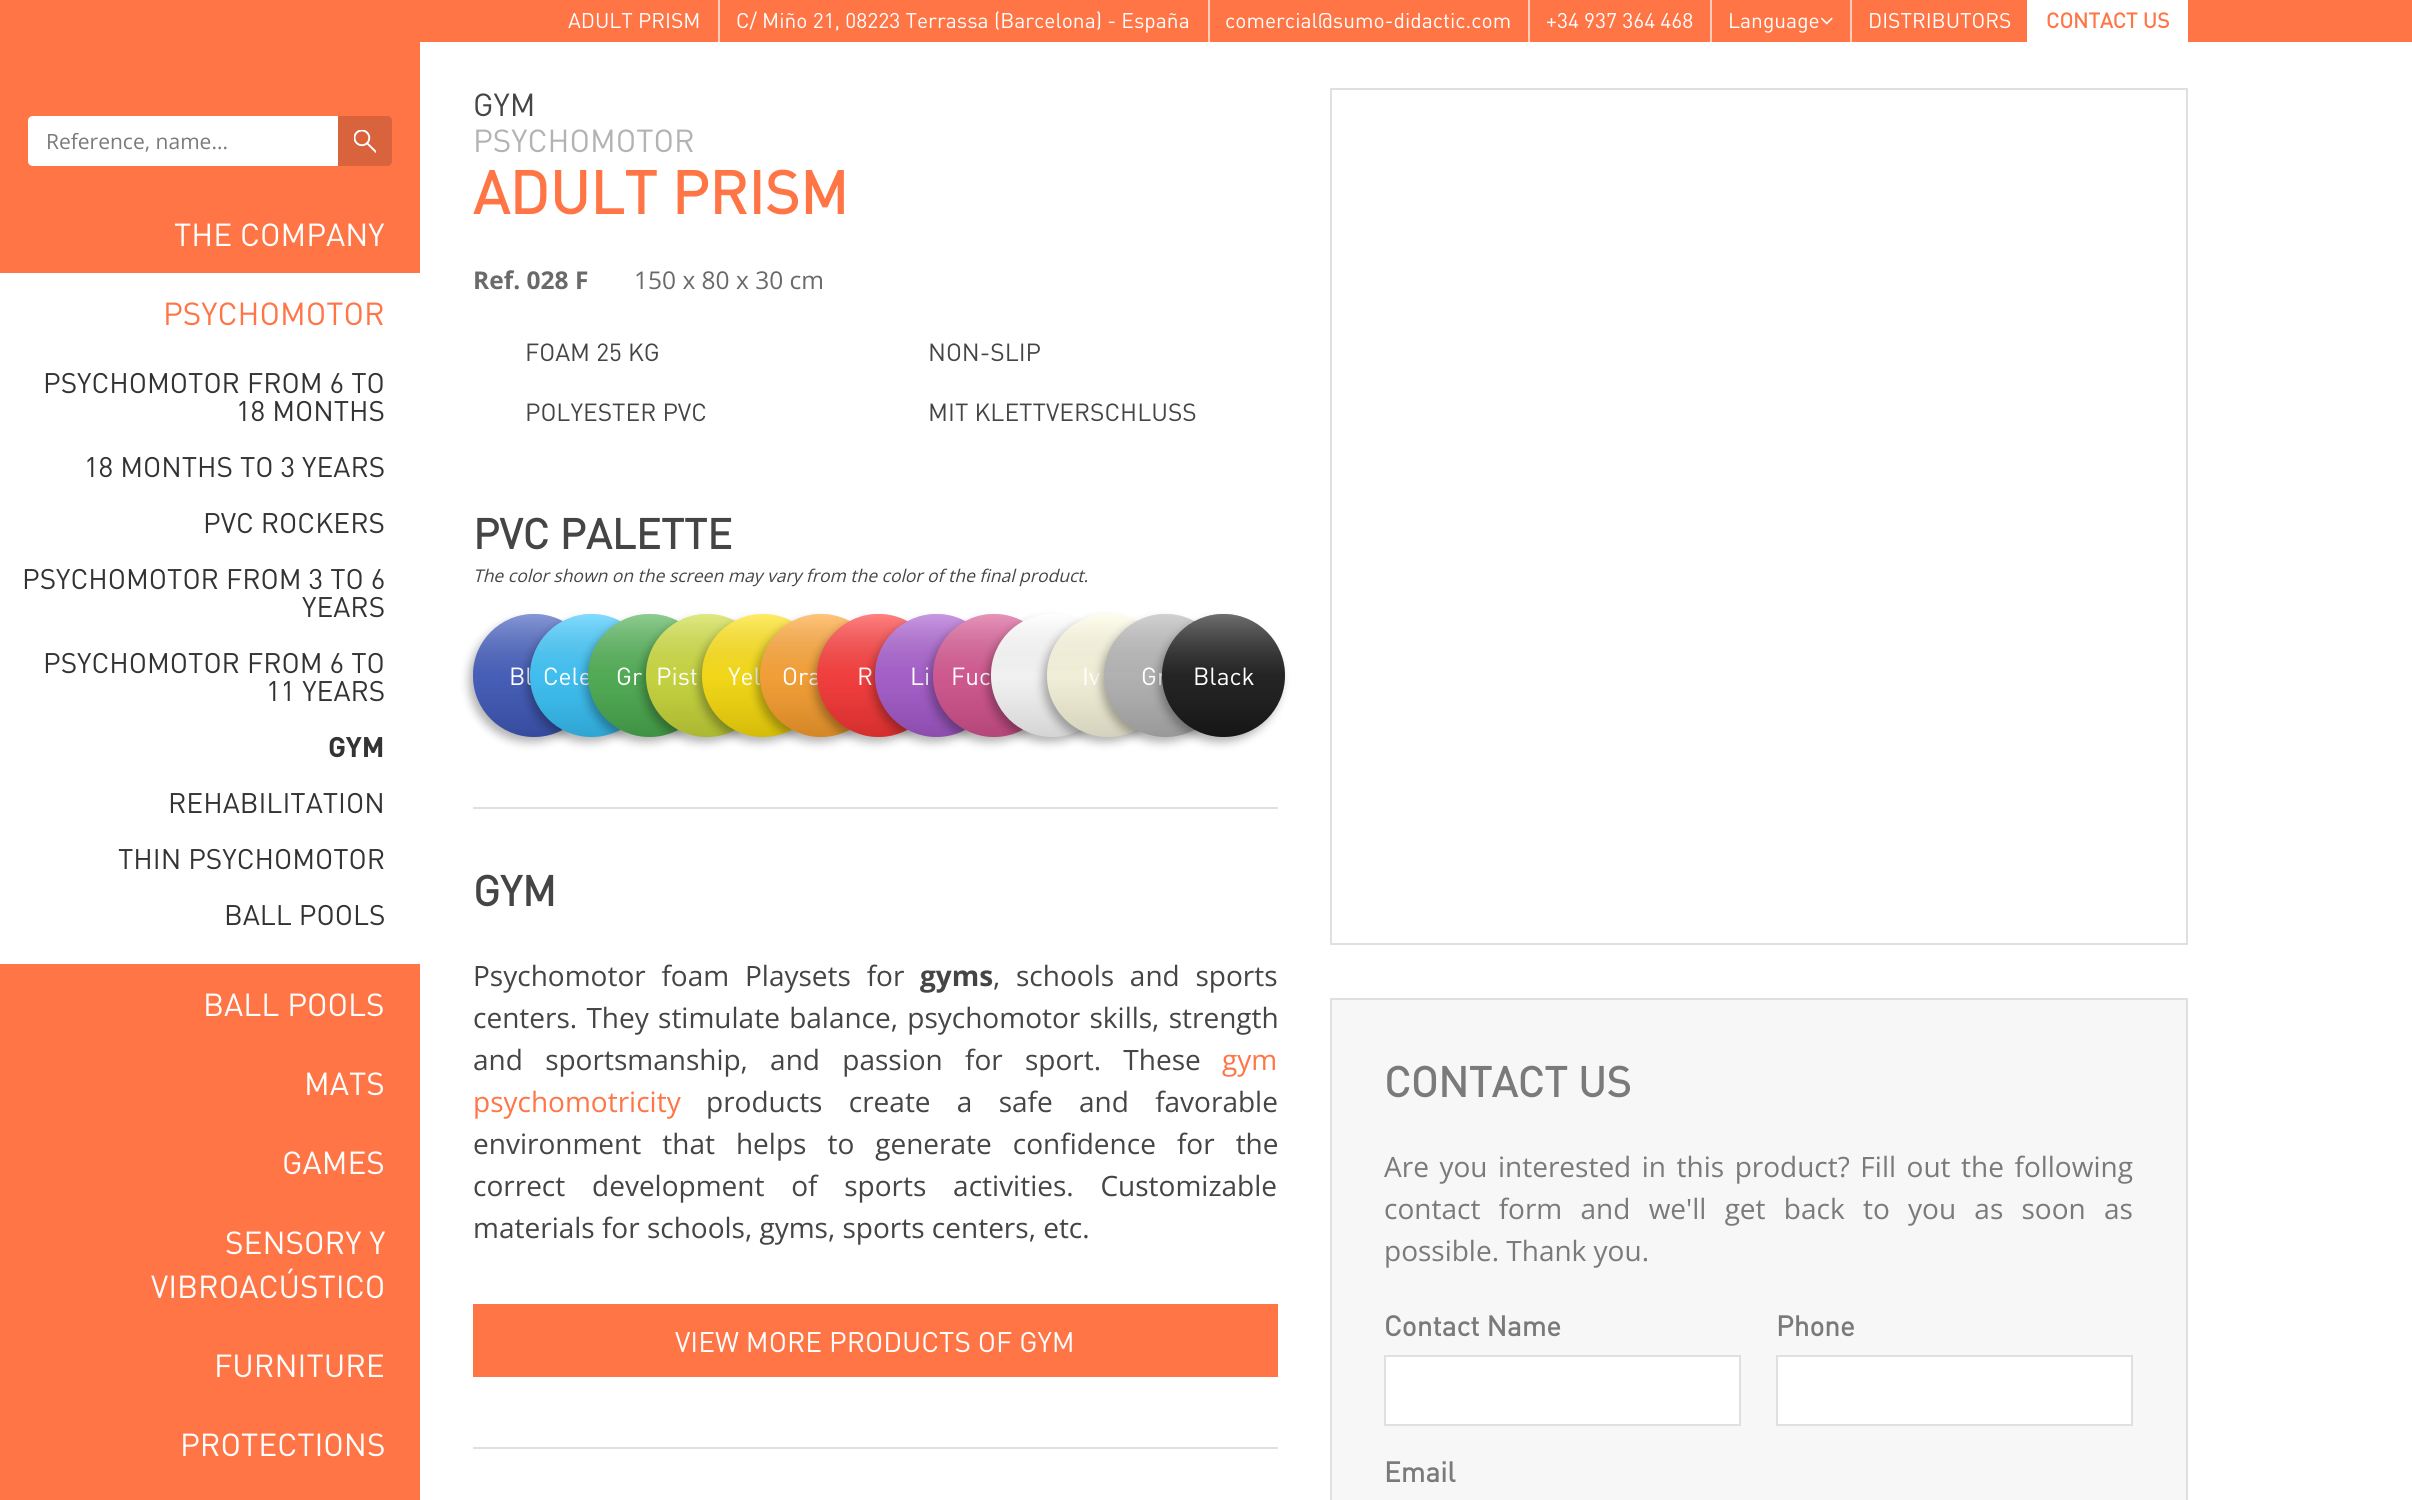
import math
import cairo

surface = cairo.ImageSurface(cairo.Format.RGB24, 2412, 1500)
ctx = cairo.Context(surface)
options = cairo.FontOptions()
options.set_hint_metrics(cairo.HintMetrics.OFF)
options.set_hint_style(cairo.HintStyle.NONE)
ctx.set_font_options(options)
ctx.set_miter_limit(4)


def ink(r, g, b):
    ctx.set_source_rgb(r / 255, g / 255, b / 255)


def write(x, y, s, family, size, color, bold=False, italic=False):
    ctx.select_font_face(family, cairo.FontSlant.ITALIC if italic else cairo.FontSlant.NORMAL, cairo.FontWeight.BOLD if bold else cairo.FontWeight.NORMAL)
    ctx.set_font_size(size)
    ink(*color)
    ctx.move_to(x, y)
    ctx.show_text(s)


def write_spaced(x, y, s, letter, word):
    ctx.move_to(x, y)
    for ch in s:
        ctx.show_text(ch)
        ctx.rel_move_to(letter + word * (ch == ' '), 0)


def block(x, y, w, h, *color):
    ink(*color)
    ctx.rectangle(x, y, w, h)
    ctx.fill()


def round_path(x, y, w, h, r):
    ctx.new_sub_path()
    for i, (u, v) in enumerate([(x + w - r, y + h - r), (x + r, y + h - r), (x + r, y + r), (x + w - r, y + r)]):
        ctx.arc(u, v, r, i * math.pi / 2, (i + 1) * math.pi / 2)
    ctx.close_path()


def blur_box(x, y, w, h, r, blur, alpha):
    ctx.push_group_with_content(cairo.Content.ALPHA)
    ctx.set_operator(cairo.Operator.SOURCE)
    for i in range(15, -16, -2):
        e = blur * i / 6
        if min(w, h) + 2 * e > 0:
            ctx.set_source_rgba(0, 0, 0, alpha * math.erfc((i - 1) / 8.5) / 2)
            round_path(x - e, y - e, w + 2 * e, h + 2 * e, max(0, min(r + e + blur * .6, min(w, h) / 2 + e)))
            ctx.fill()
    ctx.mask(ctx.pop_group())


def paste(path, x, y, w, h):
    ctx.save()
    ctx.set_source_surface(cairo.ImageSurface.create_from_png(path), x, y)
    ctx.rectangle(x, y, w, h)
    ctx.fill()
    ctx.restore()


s1 = dict(family="DIN", size=21, color=(255, 255, 255))
s2 = dict(family="DIN", size=21, color=(255, 117, 70), bold=True)
s3 = dict(family="Open Sans", size=21, color=(122, 122, 122))
s4 = dict(family="DIN", size=31.5, color=(255, 255, 255))
s5 = dict(family="DIN", size=31.5, color=(255, 117, 70))
s6 = dict(family="DIN", size=28, color=(51, 51, 51))
s7 = dict(family="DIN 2", size=28, color=(51, 51, 51), bold=True)
s8 = dict(family="DIN", size=31.5, color=(69, 69, 69))
s9 = dict(family="DIN", size=31.5, color=(179, 179, 179))
s10 = dict(family="DIN", size=59.5, color=(255, 117, 70), bold=True)
s11 = dict(family="Open Sans", size=24.5, color=(106, 106, 106), bold=True)
s12 = dict(family="Open Sans", size=24.5, color=(106, 106, 106))
s13 = dict(family="DIN", size=24.5, color=(69, 69, 69))
s14 = dict(family="DIN", size=42, color=(69, 69, 69), bold=True)
s15 = dict(family="Open Sans", size=17.5, color=(69, 69, 69), italic=True)
s16 = dict(family="DIN", size=24.5, color=(255, 255, 255))
s17 = dict(family="Open Sans", size=28, color=(69, 69, 69), bold=True)
s18 = dict(family="Open Sans", size=28, color=(255, 117, 70))
s19 = dict(family="Open Sans", size=28, color=(69, 69, 69))
s20 = dict(family="DIN", size=28, color=(255, 255, 255))
s21 = dict(family="DIN", size=42, color=(122, 122, 122), bold=True)
s22 = dict(family="Open Sans", size=28, color=(122, 122, 122))
s23 = dict(family="DIN", size=28, color=(122, 122, 122), bold=True)

ink(255, 255, 255)
ctx.paint()
block(0, 0, 2412, 42, 255, 117, 70)
block(1850, 0, 2, 42, 255, 204, 187)
block(1710, 0, 2, 42, 255, 204, 187)
block(1528, 0, 2, 42, 255, 204, 187)
block(1208, 0, 2, 42, 255, 204, 187)
block(718, 0, 2, 42, 255, 204, 187)
write(568, 28, "ADULT PRISM", **s1)
write(736, 28, "C/ Miño 21, 08223 Terrassa (Barcelona) - España", **s1)
write(1225, 28, "comercial@sumo-didactic.com", **s1)
write(1546, 28, "+34 937 364 468", **s1)
write(1728, 28, "Language", **s1)
paste("pic1.png", 1820, 17, 13, 8)
write(1868, 28, "DISTRIBUTORS", **s1)
block(2027, 0, 161, 42, 255, 255, 255)
write(2046, 28, "CONTACT US", **s2)
block(0, 42, 420, 1458, 255, 117, 70)
ink(255, 255, 255)
ctx.new_path()
ctx.move_to(33, 116)
ctx.line_to(338, 116)
ctx.line_to(338, 166)
ctx.line_to(33, 166)
ctx.curve_to(30, 166, 28, 164, 28, 161)
ctx.line_to(28, 121)
ctx.curve_to(28, 118, 30, 116, 33, 116)
ctx.close_path()
ctx.fill()
write(46, 149, "Reference, name...", **s3)
ink(217, 99, 60)
ctx.new_path()
ctx.move_to(338, 116)
ctx.line_to(387, 116)
ctx.curve_to(390, 116, 392, 118, 392, 121)
ctx.line_to(392, 161)
ctx.curve_to(392, 164, 390, 166, 387, 166)
ctx.line_to(338, 166)
ctx.close_path()
ctx.fill()
paste("pic2.png", 354, 130, 22, 23)
write(174, 246, "THE COMPANY", **s4)
block(0, 273, 420, 691, 255, 255, 255)
write(163, 325, "PSYCHOMOTOR", **s5)
write(43, 393, "PSYCHOMOTOR FROM 6 TO", **s6)
write(236, 421, "18 MONTHS", **s6)
write(84, 477, "18 MONTHS TO 3 YEARS", **s6)
write(203, 533, "PVC ROCKERS", **s6)
write(22, 589, "PSYCHOMOTOR FROM 3 TO 6", **s6)
write(302, 617, "YEARS", **s6)
write(43, 673, "PSYCHOMOTOR FROM 6 TO", **s6)
write(266, 701, "11 YEARS", **s6)
write(328, 757, "GYM", **s7)
write(168, 813, "REHABILITATION", **s6)
write(118, 869, "THIN PSYCHOMOTOR", **s6)
write(224, 925, "BALL POOLS", **s6)
write(203, 1016, "BALL POOLS", **s4)
write(304, 1095, "MATS", **s4)
write(282, 1174, "GAMES", **s4)
write(225, 1254, "SENSORY Y", **s4)
write(151, 1298, "VIBROACÚSTICO", **s4)
write(214, 1377, "FURNITURE", **s4)
write(180, 1456, "PROTECTIONS", **s4)
write(473, 116, "GYM", **s8)
write(473, 152, "PSYCHOMOTOR", **s9)
write(473, 214, "ADULT PRISM", **s10)
write(473, 289, "Ref. 028 F", **s11)
write(634, 289, "150 x 80 x 30 cm", **s12)
write(525, 361, "FOAM 25 KG", **s13)
write(928, 361, "NON-SLIP", **s13)
write(525, 421, "POLYESTER PVC", **s13)
write(928, 421, "MIT KLETTVERSCHLUSS", **s13)
block(473, 807, 805, 2, 224, 224, 224)
write(473, 549, "PVC PALETTE", **s14)
write(473, 582, "The color shown on the screen may vary from the color of the final product.", **s15)
ink(0, 0, 0)
blur_box(469, 620, 123, 122, 61, 4.5, 0.3)
ink(63, 90, 189)
round_path(473, 614, 122, 123, 61)
ctx.fill()
gradient = cairo.LinearGradient(534, 614, 534, 737)
gradient.add_color_stop_rgba(0, 1, 1, 1, 0.37)
gradient.add_color_stop_rgba(0.5, 0.502, 0.502, 0.502, 0.11)
gradient.add_color_stop_rgba(1, 0, 0, 0, 0.17)
ctx.set_source(gradient)
round_path(473, 614, 122, 123, 61)
ctx.fill()
write(509, 685, "Bl", **s16)
ink(0, 0, 0)
blur_box(527, 620, 122, 122, 61, 4.5, 0.3)
ink(56, 198, 253)
ctx.arc(591.5, 675.5, 61.5, 0, 2 * math.pi)
ctx.fill()
gradient = cairo.LinearGradient(592, 614, 592, 737)
gradient.add_color_stop_rgba(0, 1, 1, 1, 0.37)
gradient.add_color_stop_rgba(0.5, 0.502, 0.502, 0.502, 0.11)
gradient.add_color_stop_rgba(1, 0, 0, 0, 0.17)
ctx.set_source(gradient)
ctx.arc(591.5, 675.5, 61.5, 0, 2 * math.pi)
ctx.fill()
write(543, 685, "Cele", **s16)
ink(0, 0, 0)
blur_box(585, 620, 122, 122, 61, 4.5, 0.3)
ink(76, 175, 80)
ctx.arc(649.5, 675.5, 61.5, 0, 2 * math.pi)
ctx.fill()
gradient = cairo.LinearGradient(649, 614, 649, 737)
gradient.add_color_stop_rgba(0, 1, 1, 1, 0.37)
gradient.add_color_stop_rgba(0.5, 0.502, 0.502, 0.502, 0.11)
gradient.add_color_stop_rgba(1, 0, 0, 0, 0.17)
ctx.set_source(gradient)
ctx.arc(649.5, 675.5, 61.5, 0, 2 * math.pi)
ctx.fill()
write(616, 685, "Gr", **s16)
ink(0, 0, 0)
blur_box(642, 620, 123, 122, 61, 4.5, 0.3)
ink(205, 220, 57)
round_path(646, 614, 122, 123, 61)
ctx.fill()
gradient = cairo.LinearGradient(707, 614, 707, 737)
gradient.add_color_stop_rgba(0, 1, 1, 1, 0.37)
gradient.add_color_stop_rgba(0.5, 0.502, 0.502, 0.502, 0.11)
gradient.add_color_stop_rgba(1, 0, 0, 0, 0.17)
ctx.set_source(gradient)
round_path(646, 614, 122, 123, 61)
ctx.fill()
write(656, 685, "Pist", **s16)
ink(0, 0, 0)
blur_box(698, 620, 123, 122, 61, 4.5, 0.3)
ink(255, 225, 11)
round_path(702, 614, 122, 123, 61)
ctx.fill()
gradient = cairo.LinearGradient(763, 614, 763, 737)
gradient.add_color_stop_rgba(0, 1, 1, 1, 0.37)
gradient.add_color_stop_rgba(0.5, 0.502, 0.502, 0.502, 0.11)
gradient.add_color_stop_rgba(1, 0, 0, 0, 0.17)
ctx.set_source(gradient)
round_path(702, 614, 122, 123, 61)
ctx.fill()
write(728, 685, "Yel", **s16)
ink(0, 0, 0)
blur_box(756, 620, 123, 122, 61, 4.5, 0.3)
ink(255, 162, 46)
round_path(760, 614, 122, 123, 61)
ctx.fill()
gradient = cairo.LinearGradient(821, 614, 821, 737)
gradient.add_color_stop_rgba(0, 1, 1, 1, 0.37)
gradient.add_color_stop_rgba(0.5, 0.502, 0.502, 0.502, 0.11)
gradient.add_color_stop_rgba(1, 0, 0, 0, 0.17)
ctx.set_source(gradient)
round_path(760, 614, 122, 123, 61)
ctx.fill()
write(782, 685, "Ora", **s16)
ink(0, 0, 0)
blur_box(814, 620, 122, 122, 61, 4.5, 0.3)
ink(255, 54, 54)
ctx.arc(878.5, 675.5, 61.5, 0, 2 * math.pi)
ctx.fill()
gradient = cairo.LinearGradient(879, 614, 879, 737)
gradient.add_color_stop_rgba(0, 1, 1, 1, 0.37)
gradient.add_color_stop_rgba(0.5, 0.502, 0.502, 0.502, 0.11)
gradient.add_color_stop_rgba(1, 0, 0, 0, 0.17)
ctx.set_source(gradient)
ctx.arc(878.5, 675.5, 61.5, 0, 2 * math.pi)
ctx.fill()
write(857, 685, "R", **s16)
ink(0, 0, 0)
blur_box(872, 620, 122, 122, 61, 4.5, 0.3)
ink(168, 91, 208)
ctx.arc(936.5, 675.5, 61.5, 0, 2 * math.pi)
ctx.fill()
gradient = cairo.LinearGradient(936, 614, 936, 737)
gradient.add_color_stop_rgba(0, 1, 1, 1, 0.37)
gradient.add_color_stop_rgba(0.5, 0.502, 0.502, 0.502, 0.11)
gradient.add_color_stop_rgba(1, 0, 0, 0, 0.17)
ctx.set_source(gradient)
ctx.arc(936.5, 675.5, 61.5, 0, 2 * math.pi)
ctx.fill()
write(910, 685, "Li", **s16)
ink(0, 0, 0)
blur_box(929, 620, 123, 122, 61, 4.5, 0.3)
ink(216, 84, 145)
round_path(933, 614, 122, 123, 61)
ctx.fill()
gradient = cairo.LinearGradient(994, 614, 994, 737)
gradient.add_color_stop_rgba(0, 1, 1, 1, 0.37)
gradient.add_color_stop_rgba(0.5, 0.502, 0.502, 0.502, 0.11)
gradient.add_color_stop_rgba(1, 0, 0, 0, 0.17)
ctx.set_source(gradient)
round_path(933, 614, 122, 123, 61)
ctx.fill()
write(951, 685, "Fuc", **s16)
ink(0, 0, 0)
blur_box(987, 620, 123, 122, 61, 4.5, 0.3)
ink(255, 255, 255)
round_path(991, 614, 122, 123, 61)
ctx.fill()
gradient = cairo.LinearGradient(1052, 614, 1052, 737)
gradient.add_color_stop_rgba(0, 1, 1, 1, 0.37)
gradient.add_color_stop_rgba(0.5, 0.502, 0.502, 0.502, 0.11)
gradient.add_color_stop_rgba(1, 0, 0, 0, 0.17)
ctx.set_source(gradient)
round_path(991, 614, 122, 123, 61)
ctx.fill()
ink(0, 0, 0)
blur_box(1043, 620, 123, 122, 61, 4.5, 0.3)
ink(255, 252, 226)
round_path(1047, 614, 122, 123, 61)
ctx.fill()
gradient = cairo.LinearGradient(1108, 614, 1108, 737)
gradient.add_color_stop_rgba(0, 1, 1, 1, 0.37)
gradient.add_color_stop_rgba(0.5, 0.502, 0.502, 0.502, 0.11)
gradient.add_color_stop_rgba(1, 0, 0, 0, 0.17)
ctx.set_source(gradient)
round_path(1047, 614, 122, 123, 61)
ctx.fill()
write(1082, 685, "Iv", **s16)
ink(0, 0, 0)
blur_box(1101, 620, 122, 122, 61, 4.5, 0.3)
ink(183, 183, 183)
ctx.arc(1165.5, 675.5, 61.5, 0, 2 * math.pi)
ctx.fill()
gradient = cairo.LinearGradient(1166, 614, 1166, 737)
gradient.add_color_stop_rgba(0, 1, 1, 1, 0.37)
gradient.add_color_stop_rgba(0.5, 0.502, 0.502, 0.502, 0.11)
gradient.add_color_stop_rgba(1, 0, 0, 0, 0.17)
ctx.set_source(gradient)
ctx.arc(1165.5, 675.5, 61.5, 0, 2 * math.pi)
ctx.fill()
write(1141, 685, "Gr", **s16)
ink(0, 0, 0)
blur_box(1159, 620, 122, 122, 61, 4.5, 0.3)
ink(25, 25, 25)
ctx.arc(1223.5, 675.5, 61.5, 0, 2 * math.pi)
ctx.fill()
gradient = cairo.LinearGradient(1223, 614, 1223, 737)
gradient.add_color_stop_rgba(0, 1, 1, 1, 0.37)
gradient.add_color_stop_rgba(0.5, 0.502, 0.502, 0.502, 0.11)
gradient.add_color_stop_rgba(1, 0, 0, 0, 0.17)
ctx.set_source(gradient)
ctx.arc(1223.5, 675.5, 61.5, 0, 2 * math.pi)
ctx.fill()
write(1193, 685, "Black", **s16)
block(473, 1447, 805, 2, 224, 224, 224)
write(473, 906, "GYM", **s14)
ctx.select_font_face("Open Sans")
ctx.set_font_size(28)
write_spaced(473, 986, "Psychomotor foam Playsets for", 0, 8.5)
write(920, 986, "gyms", **s17)
ctx.select_font_face("Open Sans")
write_spaced(993, 986, ", schools and sports", 0, 8.5)
write_spaced(473, 1028, "centers. They stimulate balance, psychomotor skills, strength", 0, 2)
write_spaced(473, 1070, "and sportsmanship, and passion for sport. These", 0, 15)
write(1222, 1070, "gym", **s18)
write(473, 1112, "psychomotricity", **s18)
ink(69, 69, 69)
write_spaced(706, 1112, "products create a safe and favorable", 0, 19)
write_spaced(473, 1154, "environment that helps to generate confidence for the", 0, 13.75)
write_spaced(473, 1196, "correct development of sports activities. Customizable", 0, 19.5)
write(473, 1238, "materials for schools, gyms, sports centers, etc.", **s19)
block(473, 1304, 805, 73, 255, 117, 70)
write(675, 1352, "VIEW MORE PRODUCTS OF GYM", **s20)
ctx.rectangle(1331, 89, 856, 855)
ink(224, 224, 224)
ctx.stroke()
ink(247, 247, 247)
ctx.rectangle(1331, 999, 856, 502)
ctx.fill_preserve()
ink(224, 224, 224)
ctx.stroke()
write(1384, 1097, "CONTACT US", **s21)
ctx.select_font_face("Open Sans")
ctx.set_font_size(28)
write_spaced(1384, 1177, "Are you interested in this product? Fill out the following", 0, 3.25)
write_spaced(1384, 1219, "contact form and we'll get back to you as soon as", 0, 11)
write(1384, 1261, "possible. Thank you.", **s22)
write(1384, 1336, "Contact Name", **s23)
ink(255, 255, 255)
ctx.rectangle(1385, 1356, 355, 69)
ctx.fill_preserve()
ink(224, 224, 224)
ctx.stroke()
write(1776, 1336, "Phone", **s23)
ink(255, 255, 255)
ctx.rectangle(1777, 1356, 355, 69)
ctx.fill_preserve()
ink(224, 224, 224)
ctx.stroke()
write(1384, 1482, "Email", **s23)
surface.write_to_png("screenshot.png")
